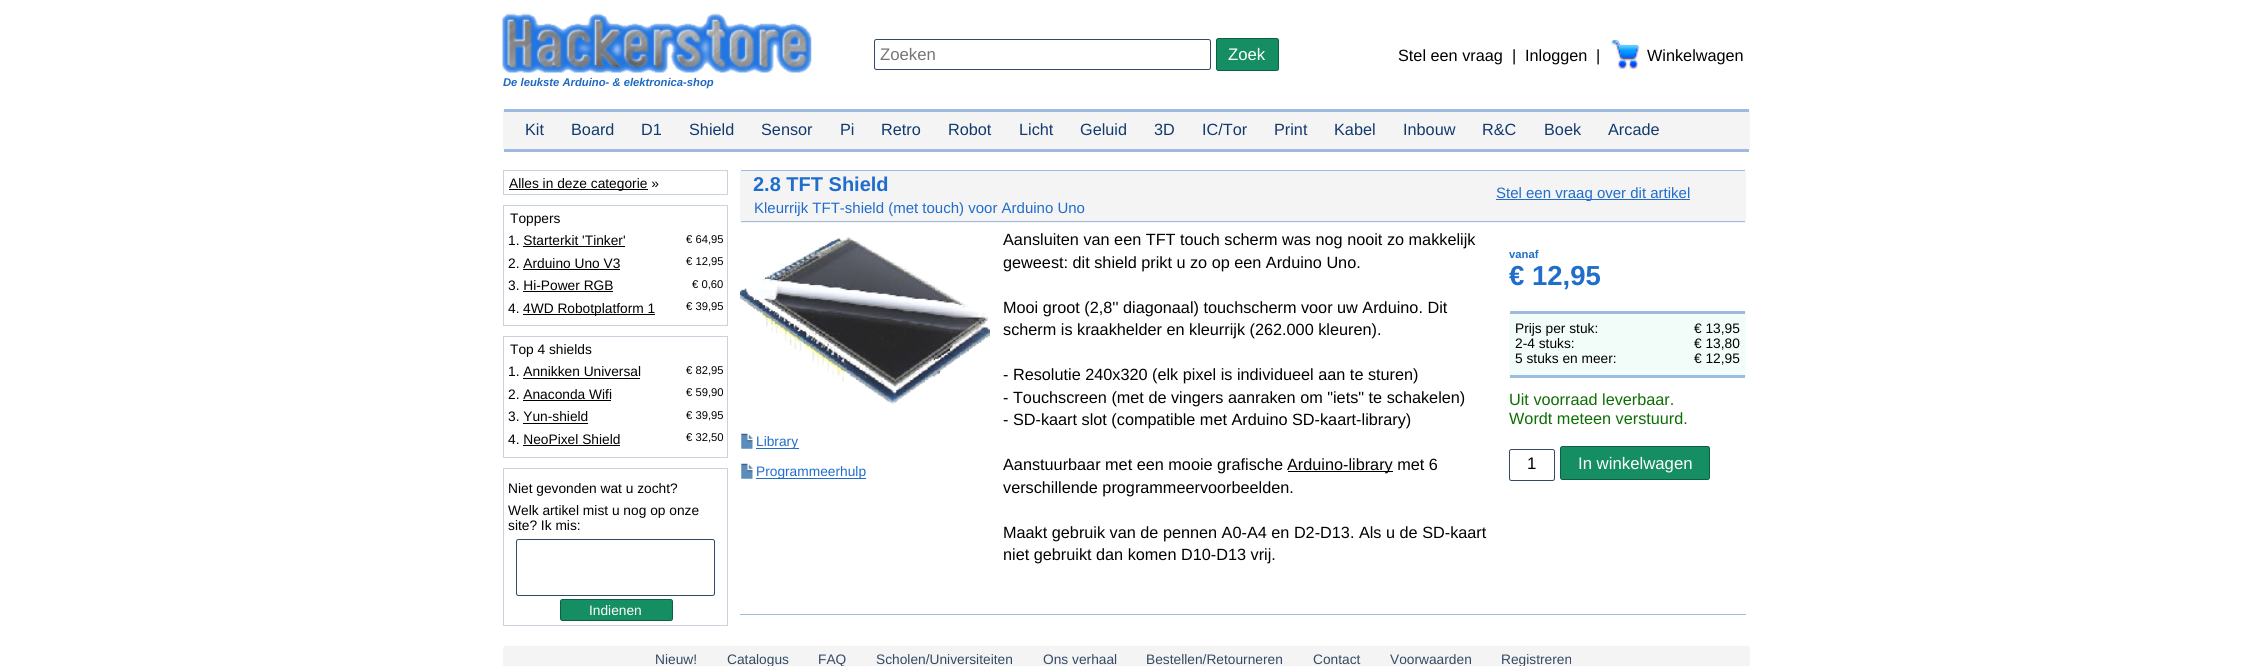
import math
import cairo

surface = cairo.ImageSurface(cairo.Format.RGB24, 2252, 666)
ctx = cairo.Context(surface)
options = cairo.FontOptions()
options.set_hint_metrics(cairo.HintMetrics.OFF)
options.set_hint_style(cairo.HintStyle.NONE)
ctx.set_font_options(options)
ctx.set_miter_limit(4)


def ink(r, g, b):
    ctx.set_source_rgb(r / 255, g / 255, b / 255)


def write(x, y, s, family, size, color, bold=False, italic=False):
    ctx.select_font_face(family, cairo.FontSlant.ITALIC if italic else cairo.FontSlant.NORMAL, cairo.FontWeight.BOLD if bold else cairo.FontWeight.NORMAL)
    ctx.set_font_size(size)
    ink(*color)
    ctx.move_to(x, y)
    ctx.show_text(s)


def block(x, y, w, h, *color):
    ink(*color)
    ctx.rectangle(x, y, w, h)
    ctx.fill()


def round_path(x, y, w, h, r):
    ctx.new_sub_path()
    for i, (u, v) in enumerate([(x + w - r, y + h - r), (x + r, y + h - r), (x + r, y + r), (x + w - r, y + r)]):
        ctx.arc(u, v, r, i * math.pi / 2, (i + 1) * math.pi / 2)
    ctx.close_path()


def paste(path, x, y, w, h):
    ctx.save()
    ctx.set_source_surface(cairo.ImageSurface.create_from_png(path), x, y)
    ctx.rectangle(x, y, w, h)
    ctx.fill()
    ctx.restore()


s1 = dict(family="Liberation Sans", size=16.75, color=(117, 117, 117))
s2 = dict(family="Liberation Sans", size=16.75, color=(255, 255, 255))
s3 = dict(family="Liberation Sans", size=16.25, color=(0, 0, 0))
s4 = dict(family="Liberation Sans", size=11.25, color=(31, 104, 193), bold=True, italic=True)
s5 = dict(family="Liberation Sans", size=16.25, color=(17, 58, 109))
s6 = dict(family="Liberation Sans", size=13.75, color=(0, 0, 0))
s7 = dict(family="Liberation Sans", size=11.25, color=(0, 0, 0))
s8 = dict(family="Liberation Sans", size=13.75, color=(255, 255, 255))
s9 = dict(family="Liberation Sans", size=20, color=(32, 109, 204), bold=True)
s10 = dict(family="Liberation Sans", size=15, color=(32, 109, 204))
s11 = dict(family="Liberation Sans", size=13.75, color=(32, 109, 204))
s12 = dict(family="Liberation Sans", size=11.25, color=(32, 109, 204), bold=True)
s13 = dict(family="Liberation Sans", size=27.5, color=(32, 109, 204), bold=True)
s14 = dict(family="Liberation Sans", size=16.25, color=(13, 109, 3))
s15 = dict(family="Liberation Sans", size=16.75, color=(0, 0, 0))
s16 = dict(family="Liberation Sans", size=13.75, color=(52, 73, 99))

ink(255, 255, 255)
ctx.paint()
round_path(874.5, 39.5, 336, 30, 2)
ink(52, 73, 99)
ctx.set_line_width(1)
ctx.stroke()
write(880, 60, "Zoeken", **s1)
ink(20, 142, 98)
round_path(1216.5, 38.5, 62, 32, 2)
ctx.fill_preserve()
ink(14, 96, 66)
ctx.stroke()
write(1228, 60, "Zoek", **s2)
write(1398, 61, "Stel een vraag", **s3)
write(1512, 61, "|", **s3)
write(1525, 61, "Inloggen", **s3)
write(1596, 61, "|", **s3)
paste("pic1.png", 1611, 40, 29, 29)
write(1647, 61, "Winkelwagen", **s3)
paste("pic2.png", 502, 13, 310, 60)
write(503, 86, "De leukste Arduino- & elektronica-shop", **s4)
ink(244, 244, 244)
round_path(503, 109, 1247, 42, 2.5)
ctx.fill()
block(504, 109, 1245, 3, 157, 187, 224)
block(504, 149, 1245, 3, 157, 187, 224)
write(525, 135, "Kit", **s5)
write(571, 135, "Board", **s5)
write(641, 135, "D1", **s5)
write(689, 135, "Shield", **s5)
write(761, 135, "Sensor", **s5)
write(840, 135, "Pi", **s5)
write(881, 135, "Retro", **s5)
write(948, 135, "Robot", **s5)
write(1019, 135, "Licht", **s5)
write(1080, 135, "Geluid", **s5)
write(1154, 135, "3D", **s5)
write(1202, 135, "IC/Tor", **s5)
write(1274, 135, "Print", **s5)
write(1334, 135, "Kabel", **s5)
write(1403, 135, "Inbouw", **s5)
write(1482, 135, "R&C", **s5)
write(1544, 135, "Boek", **s5)
write(1608, 135, "Arcade", **s5)
ctx.rectangle(503.5, 170.5, 224, 24)
ink(202, 210, 224)
ctx.stroke()
block(509, 189, 139, 1, 0, 0, 0)
write(509, 188, "Alles in deze categorie »", **s6)
ctx.rectangle(503.5, 205.5, 224, 120)
ink(202, 210, 224)
ctx.stroke()
write(510, 223, "Toppers", **s6)
write(508, 245, "1. Starterkit 'Tinker'", **s6)
write(686, 243, "€ 64,95", **s7)
block(523, 246, 102, 1, 0, 0, 0)
write(508, 268, "2. Arduino Uno V3", **s6)
write(686, 265, "€ 12,95", **s7)
block(523, 269, 97, 1, 0, 0, 0)
write(508, 290, "3. Hi-Power RGB", **s6)
write(692, 288, "€ 0,60", **s7)
block(523, 291, 90, 1, 0, 0, 0)
write(508, 313, "4.", **s6)
block(523, 314, 132, 1, 0, 0, 0)
write(523, 313, "4WD Robotplatform 1", **s6)
write(686, 310, "€ 39,95", **s7)
ctx.rectangle(503.5, 336.5, 224, 121)
ink(202, 210, 224)
ctx.stroke()
write(510, 354, "Top 4 shields", **s6)
write(508, 376, "1. Annikken Universal", **s6)
write(686, 374, "€ 82,95", **s7)
block(523, 378, 117, 1, 0, 0, 0)
write(508, 399, "2. Anaconda Wifi", **s6)
write(686, 396, "€ 59,90", **s7)
block(523, 400, 88, 1, 0, 0, 0)
write(508, 421, "3. Yun-shield", **s6)
write(686, 419, "€ 39,95", **s7)
block(523, 423, 65, 1, 0, 0, 0)
write(508, 444, "4. NeoPixel Shield", **s6)
write(686, 441, "€ 32,50", **s7)
block(523, 445, 97, 1, 0, 0, 0)
ctx.rectangle(503.5, 468.5, 224, 157)
ink(202, 210, 224)
ctx.stroke()
write(508, 493, "Niet gevonden wat u zocht?", **s6)
write(508, 515, "Welk artikel mist u nog op onze", **s6)
write(508, 530, "site? Ik mis:", **s6)
round_path(516.5, 539.5, 198, 56, 2)
ink(52, 73, 99)
ctx.stroke()
ink(20, 142, 98)
round_path(560.5, 599.5, 112, 21, 2)
ctx.fill_preserve()
ink(14, 96, 66)
ctx.stroke()
write(589, 615, "Indienen", **s8)
ink(244, 244, 244)
round_path(740, 170, 1006, 53, 2.5)
ctx.fill()
block(741, 170, 1004, 1, 157, 187, 224)
block(741, 221, 1004, 1, 157, 187, 224)
write(753, 191, "2.8 TFT Shield", **s9)
write(754, 213, "Kleurrijk TFT-shield (met touch) voor Arduino Uno", **s10)
block(1496, 199, 194, 1, 32, 109, 204)
write(1496, 198, "Stel een vraag over dit artikel", **s10)
paste("pic3.png", 740, 237, 250, 167)
paste("pic4.png", 741, 433, 12, 16)
block(756, 448, 43, 1, 32, 109, 204)
write(756, 446, "Library", **s11)
paste("pic4.png", 741, 463, 12, 16)
block(756, 478, 110, 1, 32, 109, 204)
write(756, 476, "Programmeerhulp", **s11)
write(1003, 245, "Aansluiten van een TFT touch scherm was nog nooit zo makkelijk", **s3)
write(1003, 268, "geweest: dit shield prikt u zo op een Arduino Uno.", **s3)
write(1003, 313, "Mooi groot (2,8'' diagonaal) touchscherm voor uw Arduino. Dit", **s3)
write(1003, 335, "scherm is kraakhelder en kleurrijk (262.000 kleuren).", **s3)
write(1003, 380, "- Resolutie 240x320 (elk pixel is individueel aan te sturen)", **s3)
write(1003, 403, "- Touchscreen (met de vingers aanraken om \"iets\" te schakelen)", **s3)
write(1003, 425, "- SD-kaart slot (compatible met Arduino SD-kaart-library)", **s3)
write(1003, 470, "Aanstuurbaar met een mooie grafische", **s3)
block(1288, 471, 105, 1, 0, 0, 0)
write(1287, 470, "Arduino-library met 6", **s3)
write(1003, 493, "verschillende programmeervoorbeelden.", **s3)
write(1003, 538, "Maakt gebruik van de pennen A0-A4 en D2-D13. Als u de SD-kaart", **s3)
write(1003, 560, "niet gebruikt dan komen D10-D13 vrij.", **s3)
write(1509, 258, "vanaf", **s12)
write(1509, 285, "€ 12,95", **s13)
ink(242, 252, 248)
round_path(1509, 311, 237, 67, 2.5)
ctx.fill()
block(1510, 311, 235, 3, 157, 187, 224)
block(1510, 375, 235, 3, 157, 187, 224)
write(1515, 333, "Prijs per stuk:", **s6)
write(1694, 333, "€ 13,95", **s6)
write(1515, 348, "2-4 stuks:", **s6)
write(1694, 348, "€ 13,80", **s6)
write(1515, 363, "5 stuks en meer:", **s6)
write(1694, 363, "€ 12,95", **s6)
write(1509, 405, "Uit voorraad leverbaar.", **s14)
write(1509, 424, "Wordt meteen verstuurd.", **s14)
round_path(1509.5, 449.5, 45, 31, 2)
ink(52, 73, 99)
ctx.stroke()
write(1527, 469, "1", **s15)
ink(20, 142, 98)
round_path(1560.5, 446.5, 149, 33, 2)
ctx.fill_preserve()
ink(14, 96, 66)
ctx.stroke()
write(1578, 469, "In winkelwagen", **s2)
block(740, 614, 1006, 1, 157, 187, 224)
ink(244, 244, 244)
round_path(503, 646, 1247, 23, 2.5)
ctx.fill()
write(655, 664, "Nieuw!", **s16)
write(727, 664, "Catalogus", **s16)
write(818, 664, "FAQ", **s16)
write(876, 664, "Scholen/Universiteiten", **s16)
write(1043, 664, "Ons verhaal", **s16)
write(1146, 664, "Bestellen/Retourneren", **s16)
write(1313, 664, "Contact", **s16)
write(1390, 664, "Voorwaarden", **s16)
write(1501, 664, "Registreren", **s16)
surface.write_to_png("screenshot.png")
